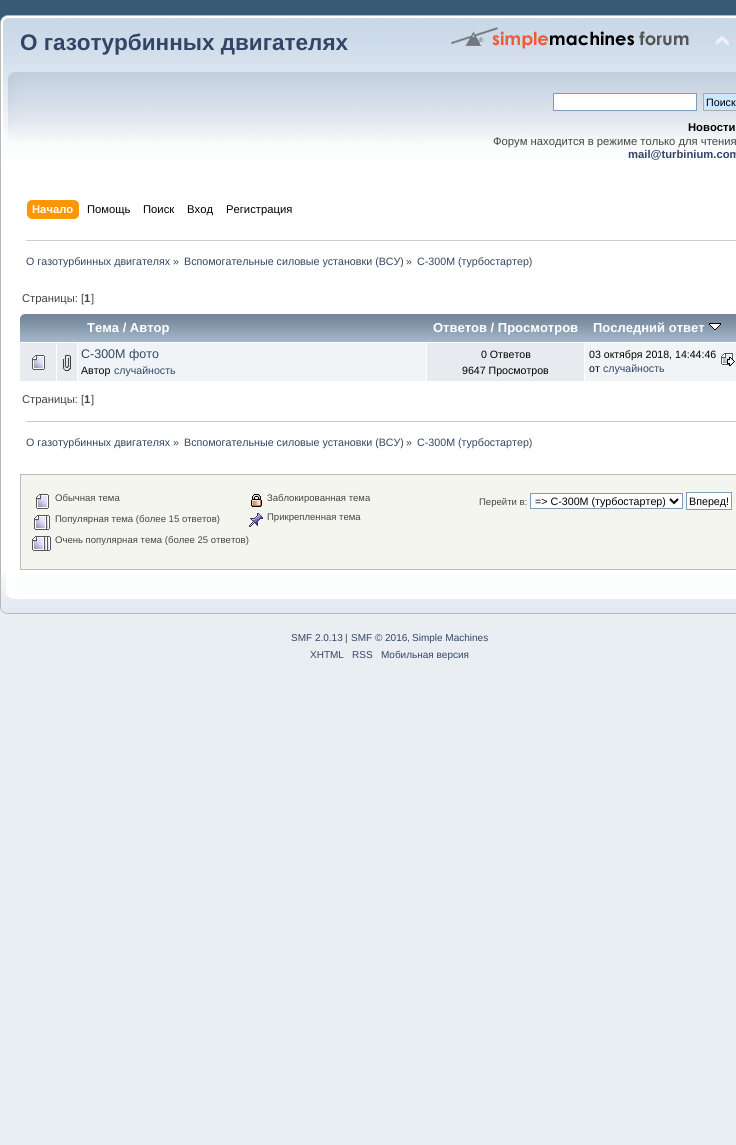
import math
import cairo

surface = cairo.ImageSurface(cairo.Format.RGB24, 736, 1145)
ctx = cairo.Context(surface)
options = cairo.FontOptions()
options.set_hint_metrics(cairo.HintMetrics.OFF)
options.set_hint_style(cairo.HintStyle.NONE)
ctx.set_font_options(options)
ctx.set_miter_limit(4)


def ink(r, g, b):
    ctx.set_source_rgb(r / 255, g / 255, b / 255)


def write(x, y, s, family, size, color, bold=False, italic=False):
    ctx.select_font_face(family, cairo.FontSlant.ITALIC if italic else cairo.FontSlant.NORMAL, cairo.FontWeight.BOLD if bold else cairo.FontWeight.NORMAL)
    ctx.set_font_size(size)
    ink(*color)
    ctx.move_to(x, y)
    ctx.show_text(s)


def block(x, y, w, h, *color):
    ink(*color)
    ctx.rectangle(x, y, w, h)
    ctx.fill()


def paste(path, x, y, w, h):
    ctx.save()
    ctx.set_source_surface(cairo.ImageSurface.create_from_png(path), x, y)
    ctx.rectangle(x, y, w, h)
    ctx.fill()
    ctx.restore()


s1 = dict(family="Liberation Sans", size=22.5, color=(51, 68, 102), bold=True)
s2 = dict(family="Liberation Sans", size=10.7, color=(0, 0, 0))
s3 = dict(family="Liberation Sans", size=11.25, color=(0, 0, 0), bold=True)
s4 = dict(family="Liberation Sans", size=11.25, color=(68, 68, 68))
s5 = dict(family="Liberation Sans", size=11.25, color=(51, 68, 102), bold=True)
s6 = dict(family="Liberation Sans", size=11.25, color=(255, 255, 255), bold=True)
s7 = dict(family="Liberation Sans", size=11.25, color=(0, 0, 0))
s8 = dict(family="Liberation Sans", size=10.7, color=(51, 68, 102))
s9 = dict(family="Liberation Sans", size=10.7, color=(68, 68, 68))
s10 = dict(family="Liberation Sans", size=11.25, color=(68, 68, 68), bold=True)
s11 = dict(family="Liberation Sans", size=13, color=(255, 255, 255), bold=True)
s12 = dict(family="Liberation Sans", size=12.5, color=(51, 68, 102))
s13 = dict(family="Liberation Sans", size=10.6, color=(0, 0, 0))
s14 = dict(family="Liberation Sans", size=10.6, color=(51, 68, 102))
s15 = dict(family="Liberation Sans", size=9.55, color=(68, 68, 68))
s16 = dict(family="Liberation Sans", size=10, color=(51, 68, 102))
s17 = dict(family="Liberation Sans", size=10, color=(68, 68, 68))

ink(233, 238, 242)
ctx.paint()
paste("pic1.png", 0, 0, 736, 15)
paste("pic2.png", 0, 15, 736, 219)
write(20, 50, "О газотурбинных двигателях", **s1)
paste("pic3.png", 451, 27, 238, 22)
paste("pic4.png", 715, 35, 15, 12)
ink(255, 255, 255)
ctx.rectangle(553.5, 93.5, 143, 17)
ctx.fill_preserve()
ink(127, 157, 185)
ctx.set_line_width(1)
ctx.stroke()
ink(205, 231, 255)
ctx.rectangle(703.5, 93.5, 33, 17)
ctx.fill_preserve()
ink(170, 170, 170)
ctx.stroke()
write(706, 106, "Поиск", **s2)
write(688, 131, "Новости", **s3)
write(493, 145, "Форум находится в режиме только для чтения", **s4)
write(628, 158, "mail@turbinium.com", **s5)
paste("pic5.png", 32, 200, 47, 19)
paste("pic6.png", 27, 200, 5, 19)
write(32, 213, "Начало", **s6)
write(87, 213, "Помощь", **s7)
write(143, 213, "Поиск", **s7)
write(187, 213, "Вход", **s7)
write(226, 213, "Регистрация", **s7)
block(1, 234, 735, 336, 255, 255, 255)
block(0, 234, 1, 336, 183, 183, 183)
block(26, 240, 710, 1, 204, 204, 204)
write(26, 265, "О газотурбинных двигателях", **s8)
write(173, 265, "»", **s9)
write(184, 265, "Вспомогательные силовые установки (ВСУ)", **s8)
write(406, 265, "»", **s9)
write(417, 265, "С-300М (турбостартер)", **s8)
write(22, 302, "Страницы: [", **s4)
write(84, 302, "1", **s10)
write(91, 302, "]", **s4)
block(20, 341, 716, 1, 167, 185, 205)
paste("pic7.png", 20, 314, 58, 27)
paste("pic8.png", 78, 314, 349, 27)
write(87, 332, "Тема / Автор", **s11)
paste("pic9.png", 427, 314, 157, 27)
write(433, 332, "Ответов / Просмотров", **s11)
paste("pic10.png", 584, 314, 152, 27)
write(593, 332, "Последний ответ", **s11)
paste("pic11.png", 709, 323, 12, 7)
block(20, 343, 36, 38, 231, 234, 239)
paste("pic12.png", 32, 355, 13, 15)
block(57, 343, 20, 38, 231, 234, 239)
paste("pic13.png", 62, 354, 9, 17)
block(78, 343, 348, 38, 240, 244, 247)
write(81, 358, "С-300М фото", **s12)
write(81, 374, "Автор", **s13)
write(114, 374, "случайность", **s14)
block(427, 343, 157, 38, 231, 234, 239)
write(481, 358, "0 Ответов", **s13)
write(462, 374, "9647 Просмотров", **s13)
block(585, 343, 151, 38, 240, 244, 247)
write(589, 358, "03 октября 2018, 14:44:46", **s13)
paste("pic14.png", 721, 353, 14, 13)
write(589, 372, "от", **s13)
write(603, 372, "случайность", **s14)
write(22, 403, "Страницы: [", **s4)
write(84, 403, "1", **s10)
write(91, 403, "]", **s4)
block(26, 421, 710, 1, 204, 204, 204)
write(26, 446, "О газотурбинных двигателях", **s8)
write(173, 446, "»", **s9)
write(184, 446, "Вспомогательные силовые установки (ВСУ)", **s8)
write(406, 446, "»", **s9)
write(417, 446, "С-300М (турбостартер)", **s8)
ink(245, 245, 240)
ctx.rectangle(20.5, 474.5, 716, 95)
ctx.fill_preserve()
ink(187, 187, 187)
ctx.stroke()
paste("pic15.png", 36, 494, 13, 15)
write(55, 501, "Обычная тема", **s15)
paste("pic16.png", 34, 515, 16, 15)
write(55, 522, "Популярная тема (более 15 ответов)", **s15)
paste("pic17.png", 32, 536, 19, 15)
write(55, 543, "Очень популярная тема (более 25 ответов)", **s15)
paste("pic18.png", 251, 494, 11, 13)
write(267, 501, "Заблокированная тема", **s15)
paste("pic19.png", 249, 513, 14, 14)
write(267, 520, "Прикрепленная тема", **s15)
write(479, 505, "Перейти в:", **s15)
ink(255, 255, 255)
ctx.rectangle(530.5, 493.5, 152, 15)
ctx.fill_preserve()
ink(127, 157, 185)
ctx.stroke()
ctx.new_path()
ctx.move_to(670, 499)
ctx.line_to(674, 503)
ctx.line_to(678, 499)
ink(0, 0, 0)
ctx.set_line_width(2)
ctx.stroke()
write(535, 505, "=> С-300М (турбостартер)", **s2)
ink(255, 255, 255)
ctx.rectangle(686.5, 492.5, 45, 17)
ctx.fill_preserve()
ink(127, 157, 185)
ctx.set_line_width(1)
ctx.stroke()
write(689, 505, "Вперед!", **s2)
paste("pic20.png", 0, 570, 736, 44)
write(291, 641, "SMF 2.0.13", **s16)
write(345, 641, "|", **s17)
write(351, 641, "SMF © 2016", **s16)
write(407, 641, ",", **s17)
write(412, 641, "Simple Machines", **s16)
write(310, 658, "XHTML", **s16)
write(352, 658, "RSS", **s16)
write(381, 658, "Мобильная версия", **s16)
surface.write_to_png("screenshot.png")
